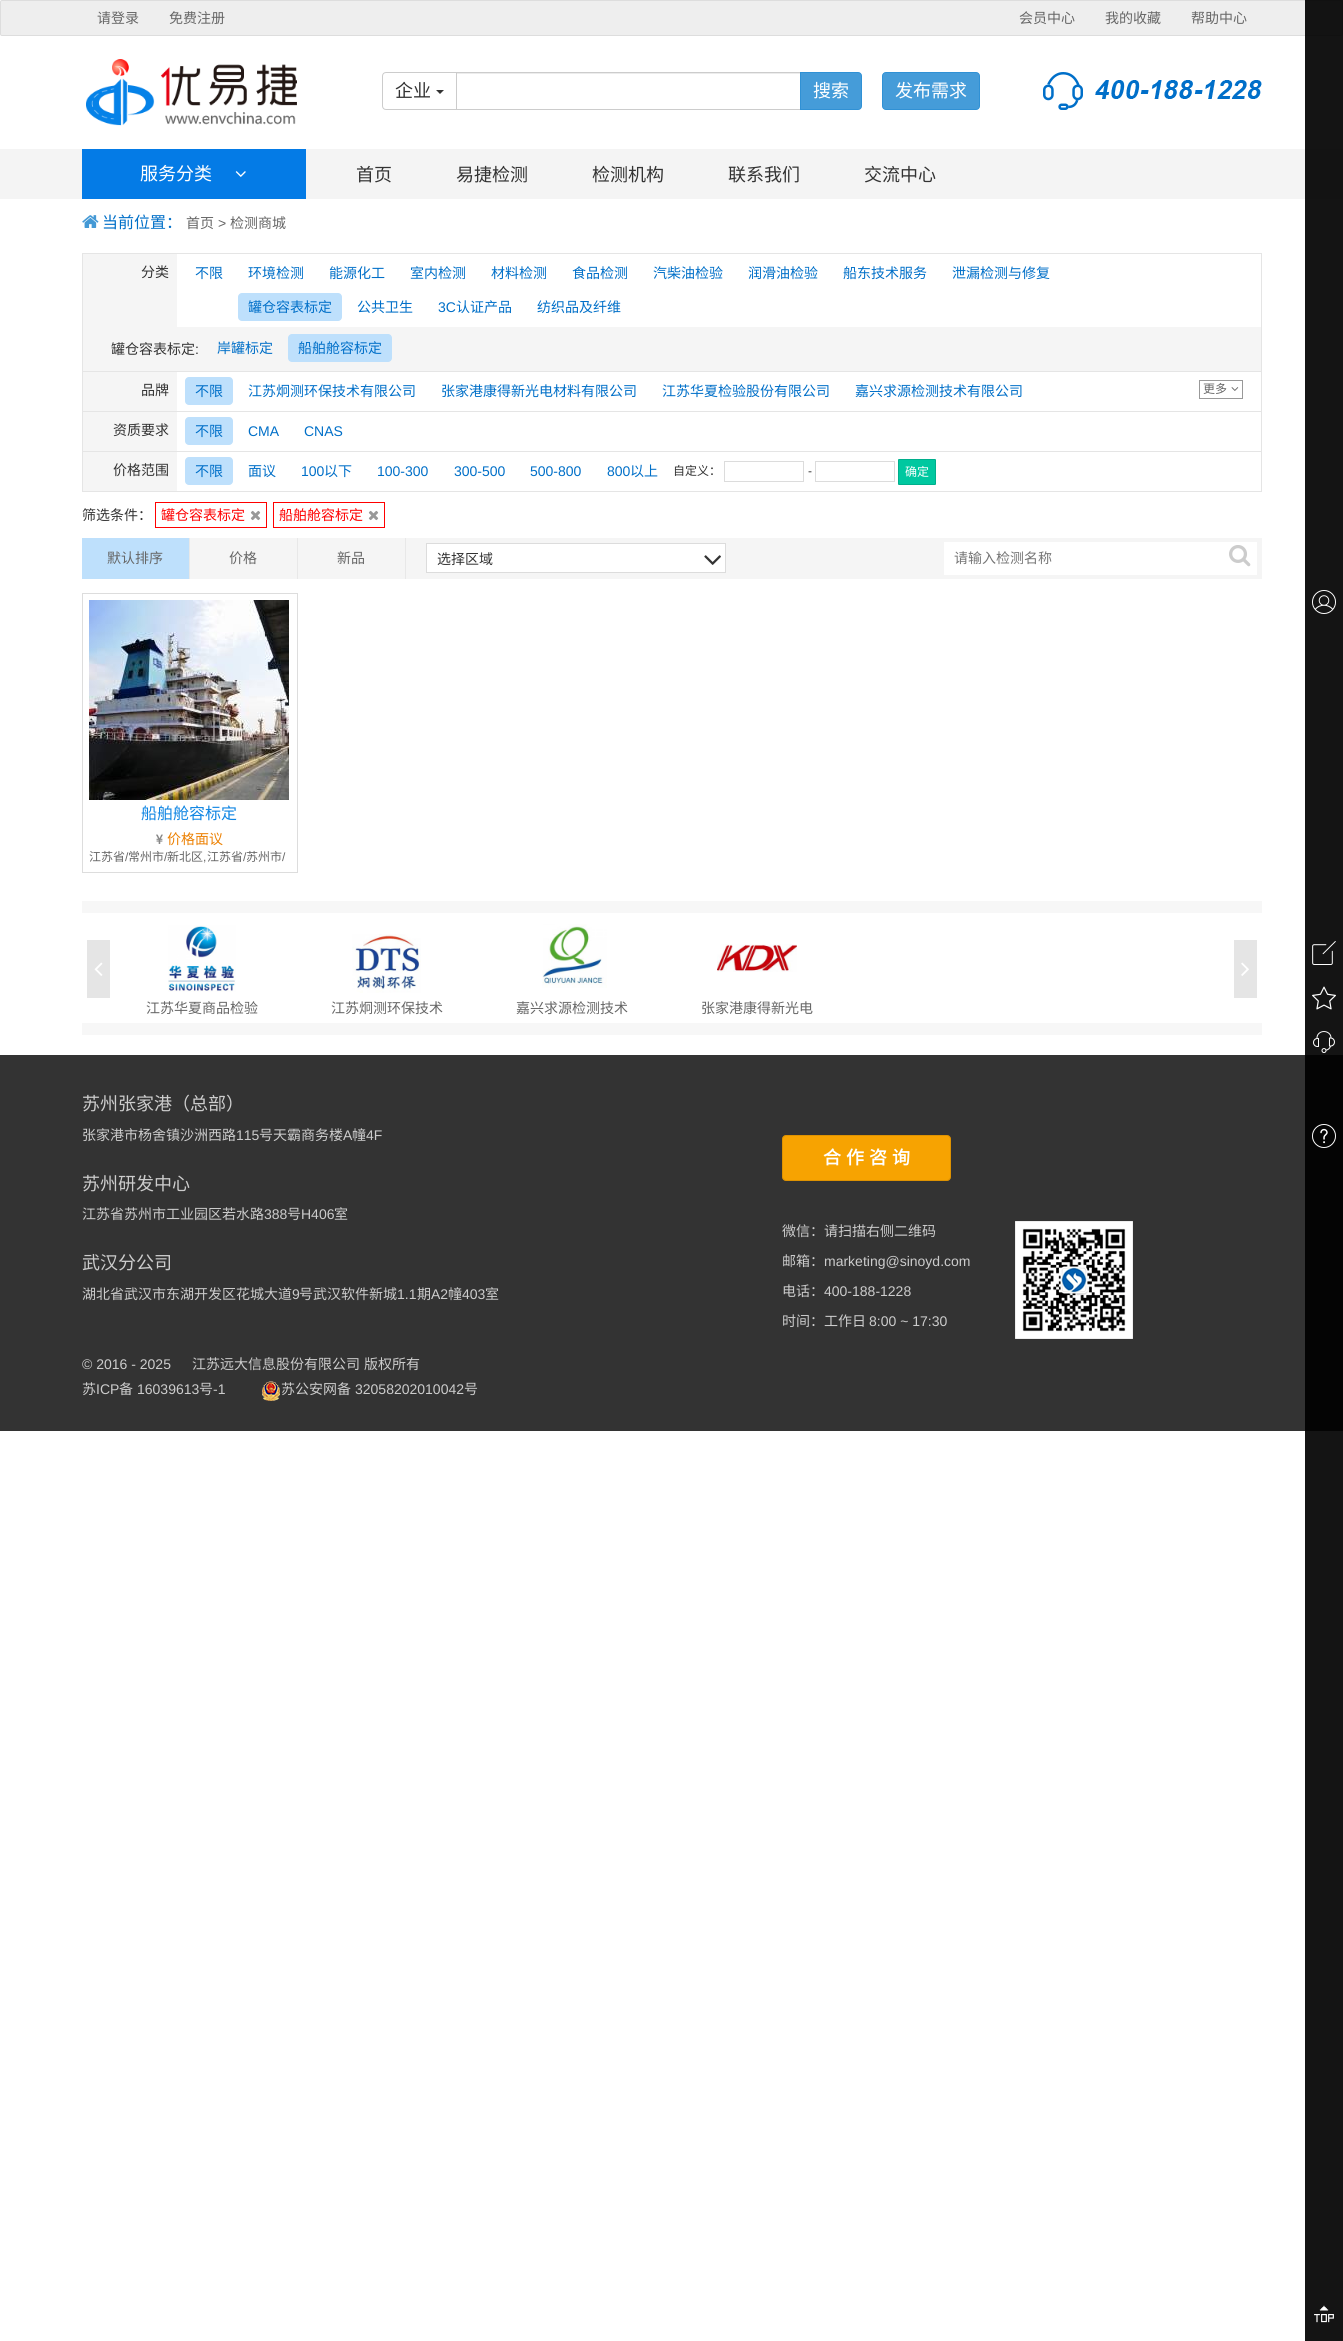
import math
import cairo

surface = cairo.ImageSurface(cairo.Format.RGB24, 1343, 2341)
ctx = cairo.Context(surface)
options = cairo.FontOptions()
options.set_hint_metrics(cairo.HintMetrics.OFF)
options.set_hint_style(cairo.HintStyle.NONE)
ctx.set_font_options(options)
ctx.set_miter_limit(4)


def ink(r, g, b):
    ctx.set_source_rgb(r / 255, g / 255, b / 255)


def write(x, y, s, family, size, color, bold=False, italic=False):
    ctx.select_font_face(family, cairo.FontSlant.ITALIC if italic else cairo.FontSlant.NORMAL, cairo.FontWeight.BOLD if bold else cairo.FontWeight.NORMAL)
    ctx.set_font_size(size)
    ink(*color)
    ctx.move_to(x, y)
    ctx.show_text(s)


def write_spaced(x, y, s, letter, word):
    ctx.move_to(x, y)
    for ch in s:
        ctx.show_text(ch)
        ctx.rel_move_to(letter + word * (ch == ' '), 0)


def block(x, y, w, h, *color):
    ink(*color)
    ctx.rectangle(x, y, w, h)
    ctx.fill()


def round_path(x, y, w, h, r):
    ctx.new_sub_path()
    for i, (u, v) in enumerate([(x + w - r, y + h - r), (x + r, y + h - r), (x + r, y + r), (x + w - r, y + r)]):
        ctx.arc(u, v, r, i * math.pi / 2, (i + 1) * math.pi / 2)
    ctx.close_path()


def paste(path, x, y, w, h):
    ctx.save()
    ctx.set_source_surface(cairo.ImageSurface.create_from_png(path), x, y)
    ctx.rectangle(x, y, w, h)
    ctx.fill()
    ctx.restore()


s1 = dict(family="Noto Sans CJK SC", size=14, color=(102, 102, 102))
s2 = dict(family="Noto Sans CJK SC", size=18, color=(51, 51, 51))
s3 = dict(family="Noto Sans CJK SC", size=18, color=(255, 255, 255))
s4 = dict(family="Noto Sans CJK SC", size=16, color=(0, 111, 200))
s5 = dict(family="Liberation Sans", size=14, color=(102, 102, 102))
s6 = dict(family="Noto Sans CJK SC", size=14, color=(51, 51, 51))
s7 = dict(family="Noto Sans CJK SC", size=14, color=(0, 111, 200))
s8 = dict(family="Liberation Sans", size=14, color=(0, 111, 200))
s9 = dict(family="Liberation Sans", size=14, color=(51, 51, 51))
s10 = dict(family="Noto Sans CJK SC", size=12, color=(102, 102, 102))
s11 = dict(family="Noto Sans CJK SC", size=12, color=(51, 51, 51))
s12 = dict(family="Liberation Sans", size=12, color=(51, 51, 51))
s13 = dict(family="Noto Sans CJK SC", size=12, color=(255, 255, 255))
s14 = dict(family="Noto Sans CJK SC", size=14, color=(255, 0, 0))
s15 = dict(family="Noto Sans CJK SC", size=14, color=(117, 117, 117))
s16 = dict(family="Noto Sans CJK SC", size=16, color=(15, 133, 227))
s17 = dict(family="Noto Sans CJK SC", size=14, color=(236, 128, 1))
s18 = dict(family="Liberation Sans", size=12, color=(102, 102, 102))
s19 = dict(family="Noto Sans CJK SC", size=18, color=(204, 204, 204))
s20 = dict(family="Noto Sans CJK SC", size=14, color=(204, 204, 204))
s21 = dict(family="Liberation Sans", size=14, color=(204, 204, 204))

ink(255, 255, 255)
ctx.paint()
ink(238, 238, 238)
round_path(0.5, 0.5, 1342, 35, 1.5)
ctx.fill_preserve()
ink(221, 221, 221)
ctx.set_line_width(1)
ctx.stroke()
write(97, 23, "请登录", **s1)
write(169, 23, "免费注册", **s1)
write(1019, 23, "会员中心", **s1)
write(1105, 23, "我的收藏", **s1)
write(1191, 23, "帮助中心", **s1)
block(0, 149, 1343, 50, 244, 244, 244)
block(0, 1055, 1343, 376, 51, 51, 51)
ctx.set_source_rgba(0, 0, 0, 0.92)
ctx.rectangle(1305, 0, 38, 2341)
ctx.fill()
paste("pic1.png", 1312, 590, 24, 24)
paste("pic2.png", 1312, 941, 24, 24)
paste("pic3.png", 1312, 986, 24, 24)
paste("pic4.png", 1313, 1031, 22, 22)
paste("pic5.png", 1312, 1124, 24, 24)
paste("pic6.png", 1314, 2305, 20, 18)
paste("pic7.png", 86, 59, 211, 67)
ctx.new_path()
ctx.move_to(386, 72.5)
ctx.line_to(456.5, 72.5)
ctx.line_to(456.5, 109.5)
ctx.line_to(386, 109.5)
ctx.curve_to(384, 109.5, 382.5, 108, 382.5, 106)
ctx.line_to(382.5, 76)
ctx.curve_to(382.5, 74, 384, 72.5, 386, 72.5)
ctx.close_path()
ink(204, 204, 204)
ctx.stroke()
write(395, 97, "企业", **s2)
ctx.new_path()
ctx.move_to(436, 90)
ctx.line_to(444, 90)
ctx.line_to(440, 94)
ctx.close_path()
ctx.fill()
block(457, 73, 343, 1, 236, 236, 236)
ctx.rectangle(456.5, 72.5, 344, 37)
ink(204, 204, 204)
ctx.stroke()
ink(69, 156, 217)
ctx.new_path()
ctx.move_to(800.5, 72.5)
ctx.line_to(858, 72.5)
ctx.curve_to(860, 72.5, 861.5, 74, 861.5, 76)
ctx.line_to(861.5, 106)
ctx.curve_to(861.5, 108, 860, 109.5, 858, 109.5)
ctx.line_to(800.5, 109.5)
ctx.close_path()
ctx.fill_preserve()
ink(48, 145, 213)
ctx.stroke()
write(813, 97, "搜索", **s3)
ink(69, 156, 217)
round_path(882.5, 72.5, 97, 37, 3.5)
ctx.fill_preserve()
ink(48, 145, 213)
ctx.stroke()
write(895, 97, "发布需求", **s3)
paste("pic8.png", 1043, 72, 219, 38)
block(82, 149, 224, 50, 4, 123, 230)
write(140, 180, "服务分类", **s3)
paste("pic9.png", 235, 171, 11, 6)
write(356, 181, "首页", **s2)
write(456, 181, "易捷检测", **s2)
write(592, 181, "检测机构", **s2)
write(728, 181, "联系我们", **s2)
write(864, 181, "交流中心", **s2)
paste("pic10.png", 82, 215, 17, 13)
write(102, 228, "当前位置：", **s4)
write(186, 228, "首页", **s1)
write(218, 228, ">", **s5)
write(230, 228, "检测商城", **s1)
block(82, 253, 1180, 1, 229, 229, 229)
block(1261, 253, 1, 239, 229, 229, 229)
block(82, 491, 1180, 1, 229, 229, 229)
block(82, 253, 1, 239, 229, 229, 229)
block(83, 254, 94, 73, 245, 245, 245)
write(141, 277, "分类", **s6)
write(195, 278, "不限", **s7)
write(248, 278, "环境检测", **s7)
write(329, 278, "能源化工", **s7)
write(410, 278, "室内检测", **s7)
write(491, 278, "材料检测", **s7)
write(572, 278, "食品检测", **s7)
write(653, 278, "汽柴油检验", **s7)
write(748, 278, "润滑油检验", **s7)
write(843, 278, "船东技术服务", **s7)
write(952, 278, "泄漏检测与修复", **s7)
ink(190, 224, 252)
round_path(238, 293, 104, 28, 4)
ctx.fill()
write(248, 312, "罐仓容表标定", **s7)
write(357, 312, "公共卫生", **s7)
write(438, 312, "3C", **s8)
write(456, 312, "认证产品", **s7)
write(537, 312, "纺织品及纤维", **s7)
block(83, 327, 1178, 44, 245, 245, 245)
write(111, 354, "罐仓容表标定", **s6)
write(195, 354, ":", **s9)
write(217, 353, "岸罐标定", **s7)
ink(190, 224, 252)
round_path(288, 334, 104, 28, 4)
ctx.fill()
write(298, 353, "船舶舱容标定", **s7)
block(82, 371, 1180, 1, 229, 229, 229)
block(83, 372, 94, 39, 245, 245, 245)
write(141, 395, "品牌", **s6)
ink(190, 224, 252)
round_path(185, 377, 48, 28, 4)
ctx.fill()
write(195, 396, "不限", **s7)
write(248, 396, "江苏炯测环保技术有限公司", **s7)
write(441, 396, "张家港康得新光电材料有限公司", **s7)
write(662, 396, "江苏华夏检验股份有限公司", **s7)
write(855, 396, "嘉兴求源检测技术有限公司", **s7)
ctx.rectangle(1199.5, 380.5, 43, 18)
ink(153, 153, 153)
ctx.stroke()
write(1203, 393, "更多", **s10)
paste("pic11.png", 1231, 387, 8, 4)
block(82, 411, 1180, 1, 229, 229, 229)
block(83, 412, 94, 39, 245, 245, 245)
write(113, 435, "资质要求", **s6)
ink(190, 224, 252)
round_path(185, 417, 48, 28, 4)
ctx.fill()
write(195, 436, "不限", **s7)
write(248, 436, "CMA", **s8)
write(304, 436, "CNAS", **s8)
block(82, 451, 1180, 1, 229, 229, 229)
block(83, 452, 94, 39, 245, 245, 245)
write(113, 475, "价格范围", **s6)
ink(190, 224, 252)
round_path(185, 457, 48, 28, 4)
ctx.fill()
write(195, 476, "不限", **s7)
write(248, 476, "面议", **s7)
write(301, 476, "100", **s8)
write(324, 476, "以下", **s7)
write(377, 476, "100-300", **s8)
write(454, 476, "300-500", **s8)
write(530, 476, "500-800", **s8)
write(607, 476, "800", **s8)
write(630, 476, "以上", **s7)
write(673, 475, "自定义：", **s11)
ctx.rectangle(724.5, 461.5, 79, 20)
ink(220, 220, 220)
ctx.stroke()
write(808, 475, "-", **s12)
ctx.rectangle(815.5, 461.5, 79, 20)
ink(220, 220, 220)
ctx.stroke()
ink(0, 200, 160)
round_path(898.5, 459.5, 37, 25, 0.5)
ctx.fill_preserve()
ink(0, 175, 140)
ctx.stroke()
write(905, 476, "确定", **s13)
write(82, 520, "筛选条件：", **s6)
ctx.rectangle(155.5, 502.5, 111, 25)
ink(255, 0, 0)
ctx.stroke()
write(161, 520, "罐仓容表标定", **s14)
paste("pic12.png", 250, 510, 11, 11)
ctx.rectangle(273.5, 502.5, 111, 25)
ctx.stroke()
write(279, 520, "船舶舱容标定", **s14)
paste("pic12.png", 368, 510, 11, 11)
block(190, 538, 1072, 41, 245, 245, 245)
block(82, 538, 107, 41, 190, 224, 252)
block(189, 538, 1, 41, 232, 232, 232)
write(107, 563, "默认排序", **s1)
block(297, 538, 1, 41, 232, 232, 232)
write(229, 563, "价格", **s1)
block(405, 538, 1, 41, 232, 232, 232)
write(337, 563, "新品", **s1)
ink(255, 255, 255)
ctx.rectangle(426.5, 543.5, 299, 29)
ctx.fill_preserve()
ink(220, 220, 220)
ctx.stroke()
write(437, 564, "选择区域", **s6)
paste("pic13.png", 704, 555, 17, 10)
block(944, 542, 313, 33, 255, 255, 255)
write(954, 563, "请输入检测名称", **s15)
paste("pic14.png", 1229, 545, 22, 22)
ctx.rectangle(82.5, 593.5, 215, 279)
ink(221, 221, 221)
ctx.stroke()
paste("pic15.png", 89, 600, 200, 200)
write(141, 819, "船舶舱容标定", **s16)
paste("pic16.png", 156, 834, 7, 10)
write(167, 844, "价格面议", **s17)
write(89, 861, "江苏省", **s10)
write(125, 861, "/", **s18)
write(128, 861, "常州市", **s10)
write(164, 861, "/", **s18)
write(167, 861, "新北区", **s10)
write(203, 861, ",", **s18)
write(207, 861, "江苏省", **s10)
write(243, 861, "/", **s18)
write(246, 861, "苏州市", **s10)
write(282, 861, "/", **s18)
block(82, 901, 1180, 12, 247, 247, 247)
block(82, 1023, 1180, 12, 247, 247, 247)
block(87, 940, 23, 58, 229, 229, 229)
paste("pic17.png", 94, 962, 9, 14)
block(1234, 940, 23, 58, 229, 229, 229)
paste("pic18.png", 1241, 962, 8, 14)
paste("pic19.png", 168, 925, 68, 67)
write(146, 1013, "江苏华夏商品检验", **s1)
paste("pic20.png", 352, 934, 69, 59)
write(331, 1013, "江苏炯测环保技术", **s1)
paste("pic21.png", 542, 924, 65, 64)
write(516, 1013, "嘉兴求源检测技术", **s1)
paste("pic22.png", 717, 944, 80, 28)
write(701, 1013, "张家港康得新光电", **s1)
write(82, 1110, "苏州张家港（总部）", **s19)
write(82, 1140, "张家港市杨舍镇沙洲西路", **s20)
write(236, 1140, "115", **s21)
write(259, 1140, "号天霸商务楼", **s20)
write(343, 1140, "A", **s21)
write(352, 1140, "幢", **s20)
write(366, 1140, "4F", **s21)
write(82, 1190, "苏州研发中心", **s19)
write(82, 1219, "江苏省苏州市工业园区若水路", **s20)
write(264, 1219, "388", **s21)
write(287, 1219, "号", **s20)
write(301, 1219, "H406", **s21)
write(334, 1219, "室", **s20)
write(82, 1269, "武汉分公司", **s19)
write(82, 1299, "湖北省武汉市东湖开发区花城大道", **s20)
write(292, 1299, "9", **s21)
write(299, 1299, "号武汉软件新城", **s20)
write(397, 1299, "1.1", **s21)
write(417, 1299, "期", **s20)
write(431, 1299, "A2", **s21)
write(448, 1299, "幢", **s20)
write(462, 1299, "403", **s21)
write(485, 1299, "室", **s20)
write(82, 1369, "© 2016 - 2025", **s21)
write(192, 1369, "江苏远大信息股份有限公司", **s20)
write(364, 1369, "版权所有", **s20)
write(82, 1394, "苏", **s20)
write(96, 1394, "ICP", **s21)
write(119, 1394, "备", **s20)
write(137, 1394, "16039613", **s21)
write(199, 1394, "号", **s20)
write(213, 1394, "-1", **s21)
paste("pic23.png", 262, 1381, 18, 20)
write(281, 1394, "苏公安网备", **s20)
write(355, 1394, "32058202010042", **s21)
write(464, 1394, "号", **s20)
ink(247, 163, 1)
round_path(782.5, 1135.5, 168, 45, 3.5)
ctx.fill_preserve()
ink(222, 146, 1)
ctx.stroke()
ctx.select_font_face("Noto Sans CJK SC", cairo.FontSlant.NORMAL, cairo.FontWeight.BOLD)
ctx.set_font_size(18)
ink(255, 255, 255)
write_spaced(823, 1164, "合 作 咨 询", 0, 1)
write(782, 1236, "微信：请扫描右侧二维码", **s20)
write(782, 1266, "邮箱：", **s20)
write(824, 1266, "marketing@sinoyd.com", **s21)
write(782, 1296, "电话：", **s20)
write(824, 1296, "400-188-1228", **s21)
write(782, 1326, "时间：工作日", **s20)
write(869, 1326, "8:00 ~ 17:30", **s21)
paste("pic24.png", 1015, 1221, 118, 118)
surface.write_to_png("screenshot.png")
